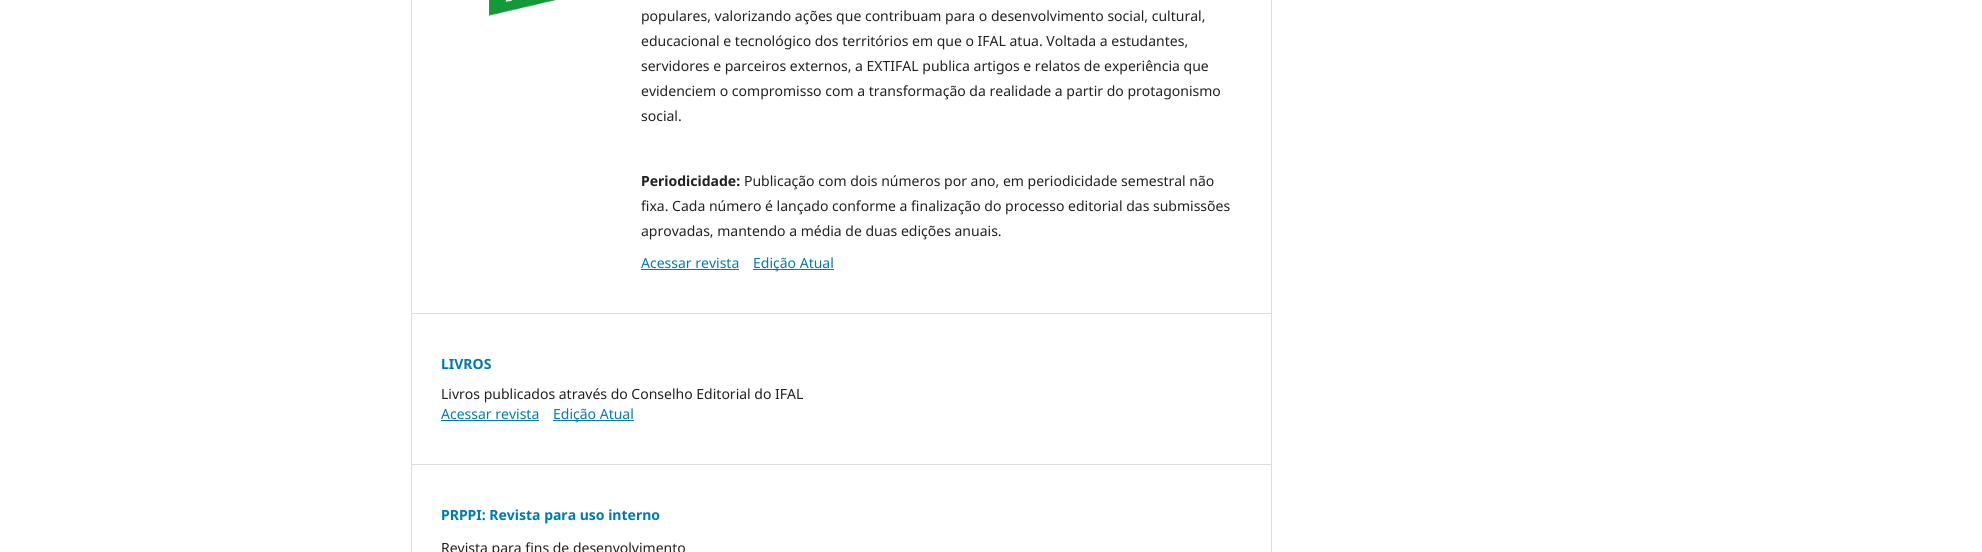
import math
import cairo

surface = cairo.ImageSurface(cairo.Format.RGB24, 1982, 552)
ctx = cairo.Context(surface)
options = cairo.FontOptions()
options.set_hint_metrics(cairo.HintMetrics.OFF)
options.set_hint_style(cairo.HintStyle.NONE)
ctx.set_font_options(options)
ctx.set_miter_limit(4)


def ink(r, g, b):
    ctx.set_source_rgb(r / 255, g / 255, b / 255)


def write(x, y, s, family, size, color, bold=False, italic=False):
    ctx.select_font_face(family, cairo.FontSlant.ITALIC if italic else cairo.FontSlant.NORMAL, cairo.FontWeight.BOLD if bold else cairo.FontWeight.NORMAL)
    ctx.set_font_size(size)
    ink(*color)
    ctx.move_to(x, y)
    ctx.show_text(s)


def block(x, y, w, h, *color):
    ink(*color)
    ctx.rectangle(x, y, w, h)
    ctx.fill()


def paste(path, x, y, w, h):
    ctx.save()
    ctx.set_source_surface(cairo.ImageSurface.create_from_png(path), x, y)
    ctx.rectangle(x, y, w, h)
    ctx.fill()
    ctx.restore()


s1 = dict(family="Noto Sans", size=14, color=(33, 33, 33))
s2 = dict(family="Noto Sans", size=14, color=(33, 33, 33), bold=True)
s3 = dict(family="Noto Sans", size=14, color=(0, 122, 178))
s4 = dict(family="Noto Sans", size=14, color=(0, 122, 178), bold=True)

ink(255, 255, 255)
ctx.paint()
block(411, 313, 860, 1, 221, 221, 221)
block(411, 464, 860, 1, 221, 221, 221)
block(411, 0, 1, 552, 221, 221, 221)
paste("pic1.png", 489, 0, 68, 16)
write(641, 21, "populares, valorizando ações que contribuam para o desenvolvimento social, cultural,", **s1)
write(641, 46, "educacional e tecnológico dos territórios em que o IFAL atua. Voltada a estudantes,", **s1)
write(641, 71, "servidores e parceiros externos, a EXTIFAL publica artigos e relatos de experiência que", **s1)
write(641, 96, "evidenciem o compromisso com a transformação da realidade a partir do protagonismo", **s1)
write(641, 121, "social.", **s1)
write(641, 186, "Periodicidade:", **s2)
write(744, 186, "Publicação com dois números por ano, em periodicidade semestral não", **s1)
write(641, 211, "fixa. Cada número é lançado conforme a finalização do processo editorial das submissões", **s1)
write(641, 236, "aprovadas, mantendo a média de duas edições anuais.", **s1)
write(641, 268, "Acessar revista", **s3)
block(641, 269, 98, 1, 0, 122, 178)
block(753, 269, 81, 1, 0, 122, 178)
write(753, 268, "Edição Atual", **s3)
write(441, 369, "LIVROS", **s4)
write(441, 399, "Livros publicados através do Conselho Editorial do IFAL", **s1)
write(441, 419, "Acessar revista", **s3)
block(441, 420, 98, 1, 0, 122, 178)
block(553, 420, 81, 1, 0, 122, 178)
write(553, 419, "Edição Atual", **s3)
write(441, 520, "PRPPI: Revista para uso interno", **s4)
write(441, 553, "Revista para fins de desenvolvimento", **s1)
block(1271, 0, 1, 552, 221, 221, 221)
surface.write_to_png("screenshot.png")
